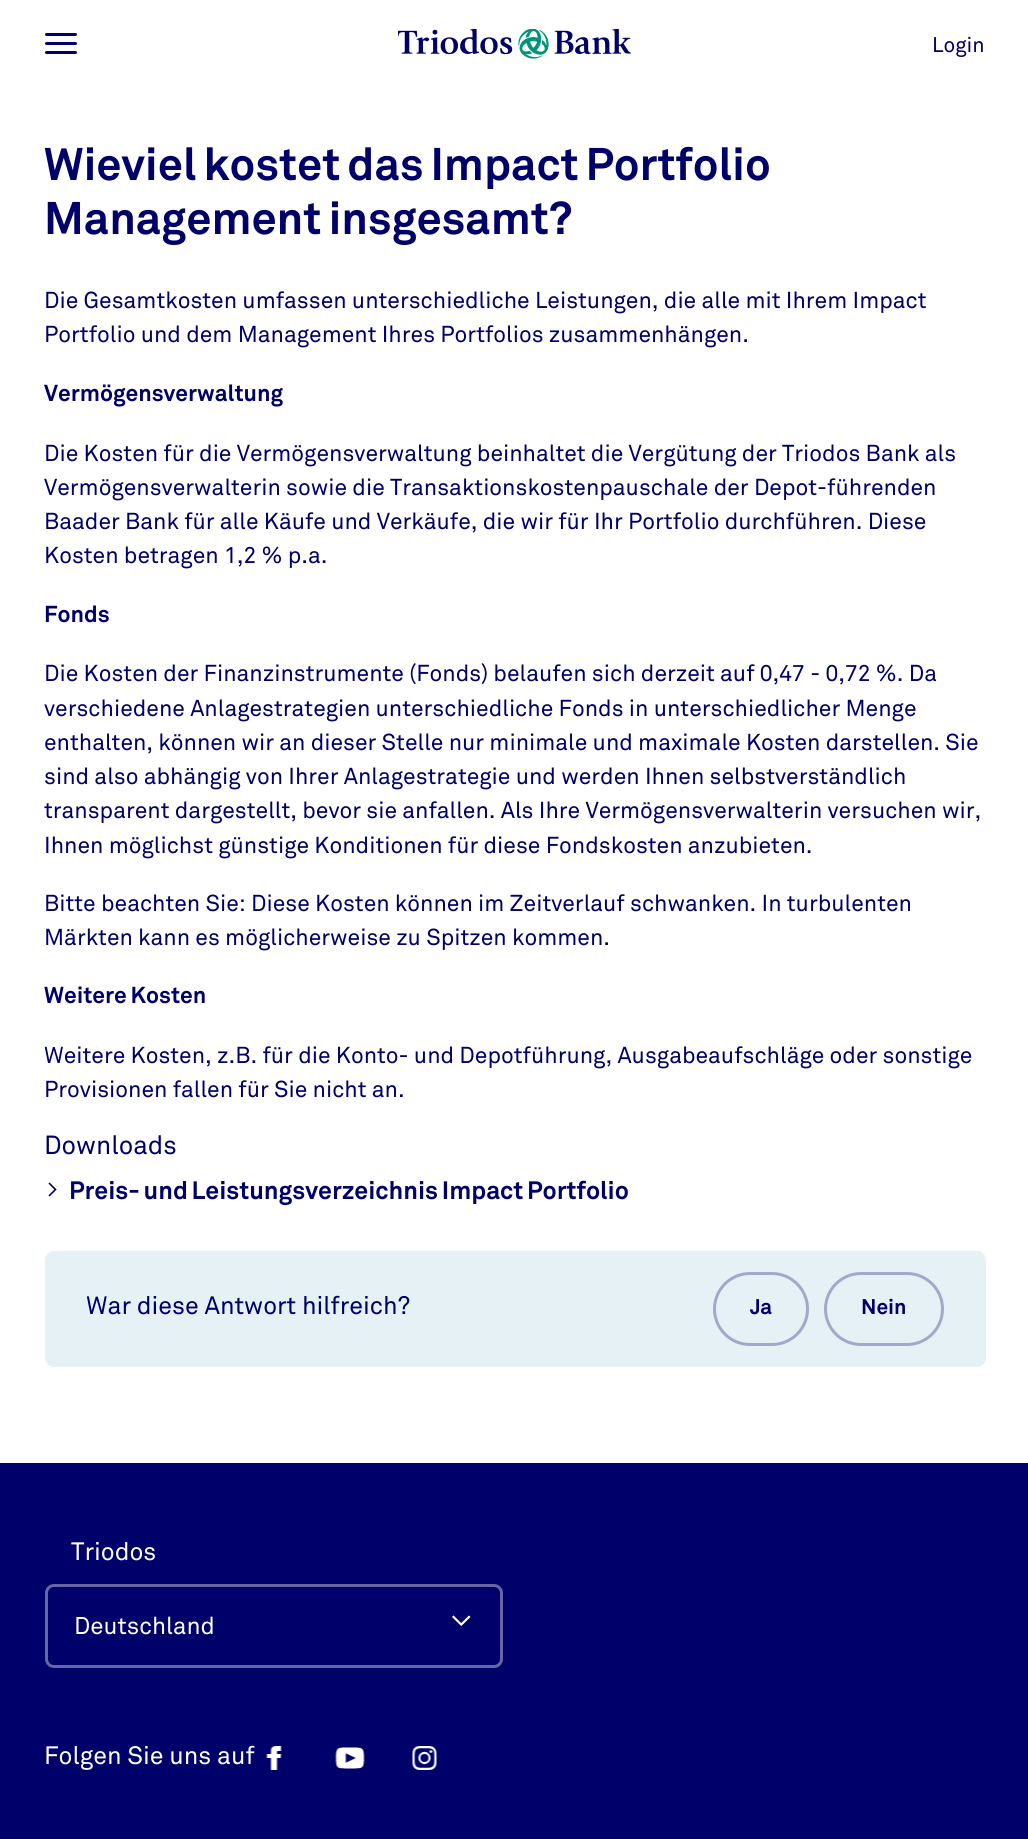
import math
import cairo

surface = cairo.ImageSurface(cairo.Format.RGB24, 1028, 1839)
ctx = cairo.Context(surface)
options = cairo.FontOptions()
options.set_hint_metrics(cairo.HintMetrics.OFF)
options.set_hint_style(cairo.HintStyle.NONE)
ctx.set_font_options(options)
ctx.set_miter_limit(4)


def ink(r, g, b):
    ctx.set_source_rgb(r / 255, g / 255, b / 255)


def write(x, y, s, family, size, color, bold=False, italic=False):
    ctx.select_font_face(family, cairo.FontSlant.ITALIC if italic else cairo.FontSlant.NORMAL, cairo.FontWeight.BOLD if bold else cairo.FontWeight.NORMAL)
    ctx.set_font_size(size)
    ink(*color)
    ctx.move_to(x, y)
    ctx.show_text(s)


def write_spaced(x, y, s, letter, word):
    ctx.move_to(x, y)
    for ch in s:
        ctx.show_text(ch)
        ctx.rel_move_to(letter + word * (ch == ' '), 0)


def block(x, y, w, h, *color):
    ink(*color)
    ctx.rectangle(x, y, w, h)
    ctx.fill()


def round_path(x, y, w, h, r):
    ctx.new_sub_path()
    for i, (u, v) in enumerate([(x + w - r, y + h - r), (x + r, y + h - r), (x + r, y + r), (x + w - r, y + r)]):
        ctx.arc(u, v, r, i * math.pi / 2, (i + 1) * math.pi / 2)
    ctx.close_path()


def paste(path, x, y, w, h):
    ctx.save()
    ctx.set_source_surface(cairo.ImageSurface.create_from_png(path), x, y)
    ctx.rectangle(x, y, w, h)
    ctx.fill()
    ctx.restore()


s1 = dict(family="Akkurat", size=21, color=(0, 0, 107))
s2 = dict(family="Akkurat", size=22.85, color=(0, 0, 107))
s3 = dict(family="Akkurat", size=22.85, color=(0, 0, 107), bold=True)
s4 = dict(family="Akkurat", size=26, color=(0, 0, 107))
s5 = dict(family="Akkurat", size=24.9, color=(0, 0, 107))
s6 = dict(family="Akkurat", size=21, color=(0, 0, 107), bold=True)
s7 = dict(family="Akkurat", size=24.9, color=(255, 255, 255))
s8 = dict(family="Akkurat", size=24, color=(255, 255, 255))

ink(255, 255, 255)
ctx.paint()
ink(0, 0, 107)
round_path(45, 42, 32, 3, 1.5)
ctx.fill()
round_path(45, 33, 32, 3, 1.5)
ctx.fill()
round_path(45, 51, 32, 3, 1.5)
ctx.fill()
paste("pic1.png", 398, 29, 233, 30)
write(932, 52, "Login", **s1)
ctx.select_font_face("Akkurat", cairo.FontSlant.NORMAL, cairo.FontWeight.BOLD)
ctx.set_font_size(45.25)
write_spaced(44, 180, "Wieviel kostet das Impact Portfolio", 0, -2.5)
write_spaced(44, 234, "Management insgesamt?", 0, -2.5)
write(44, 308, "Die Gesamtkosten umfassen unterschiedliche Leistungen, die alle mit Ihrem Impact", **s2)
write(44, 342, "Portfolio und dem Management Ihres Portfolios zusammenhängen.", **s2)
write(44, 401, "Vermögensverwaltung", **s3)
write(44, 461, "Die Kosten für die Vermögensverwaltung beinhaltet die Vergütung der Triodos Bank als", **s2)
write(44, 495, "Vermögensverwalterin sowie die Transaktionskostenpauschale der Depot-führenden", **s2)
write(44, 529, "Baader Bank für alle Käufe und Verkäufe, die wir für Ihr Portfolio durchführen. Diese", **s2)
write(44, 563, "Kosten betragen 1,2 % p.a.", **s2)
write(44, 622, "Fonds", **s3)
write(44, 681, "Die Kosten der Finanzinstrumente (Fonds) belaufen sich derzeit auf 0,47 - 0,72 %. Da", **s2)
write(44, 716, "verschiedene Anlagestrategien unterschiedliche Fonds in unterschiedlicher Menge", **s2)
write(44, 750, "enthalten, können wir an dieser Stelle nur minimale und maximale Kosten darstellen. Sie", **s2)
write(44, 784, "sind also abhängig von Ihrer Anlagestrategie und werden Ihnen selbstverständlich", **s2)
write(44, 818, "transparent dargestellt, bevor sie anfallen. Als Ihre Vermögensverwalterin versuchen wir,", **s2)
write(44, 853, "Ihnen möglichst günstige Konditionen für diese Fondskosten anzubieten.", **s2)
write(44, 911, "Bitte beachten Sie: Diese Kosten können im Zeitverlauf schwanken. In turbulenten", **s2)
write(44, 945, "Märkten kann es möglicherweise zu Spitzen kommen.", **s2)
ctx.select_font_face("Akkurat", cairo.FontSlant.NORMAL, cairo.FontWeight.BOLD)
write_spaced(44, 1003, "Weitere Kosten", 0, -1)
write(44, 1063, "Weitere Kosten, z.B. für die Konto- und Depotführung, Ausgabeaufschläge oder sonstige", **s2)
write(44, 1097, "Provisionen fallen für Sie nicht an.", **s2)
write(44, 1154, "Downloads", **s4)
paste("pic2.png", 48, 1182, 9, 15)
ctx.select_font_face("Akkurat", cairo.FontSlant.NORMAL, cairo.FontWeight.BOLD)
ctx.set_font_size(24.9)
write_spaced(69, 1199, "Preis- und Leistungsverzeichnis Impact Portfolio", 0, -1.5)
ink(229, 241, 244)
round_path(45, 1251, 941, 116, 9)
ctx.fill()
write(86, 1314, "War diese Antwort hilfreich?", **s5)
round_path(714.5, 1273.5, 93, 71, 35.5)
ink(160, 169, 203)
ctx.set_line_width(3)
ctx.stroke()
write(750, 1314, "Ja", **s6)
round_path(825.5, 1273.5, 117, 71, 35.5)
ink(160, 169, 203)
ctx.stroke()
write(861, 1314, "Nein", **s6)
block(0, 1463, 1028, 376, 0, 0, 107)
write(71, 1560, "Triodos", **s7)
round_path(46.5, 1585.5, 455, 81, 7.5)
ink(102, 102, 166)
ctx.stroke()
write(74, 1634, "Deutschland", **s8)
paste("pic3.png", 452, 1615, 19, 11)
write(44, 1764, "Folgen Sie uns auf", **s7)
paste("pic4.png", 266, 1746, 16, 24)
paste("pic5.png", 335, 1747, 30, 22)
paste("pic6.png", 412, 1746, 25, 24)
surface.write_to_png("screenshot.png")
